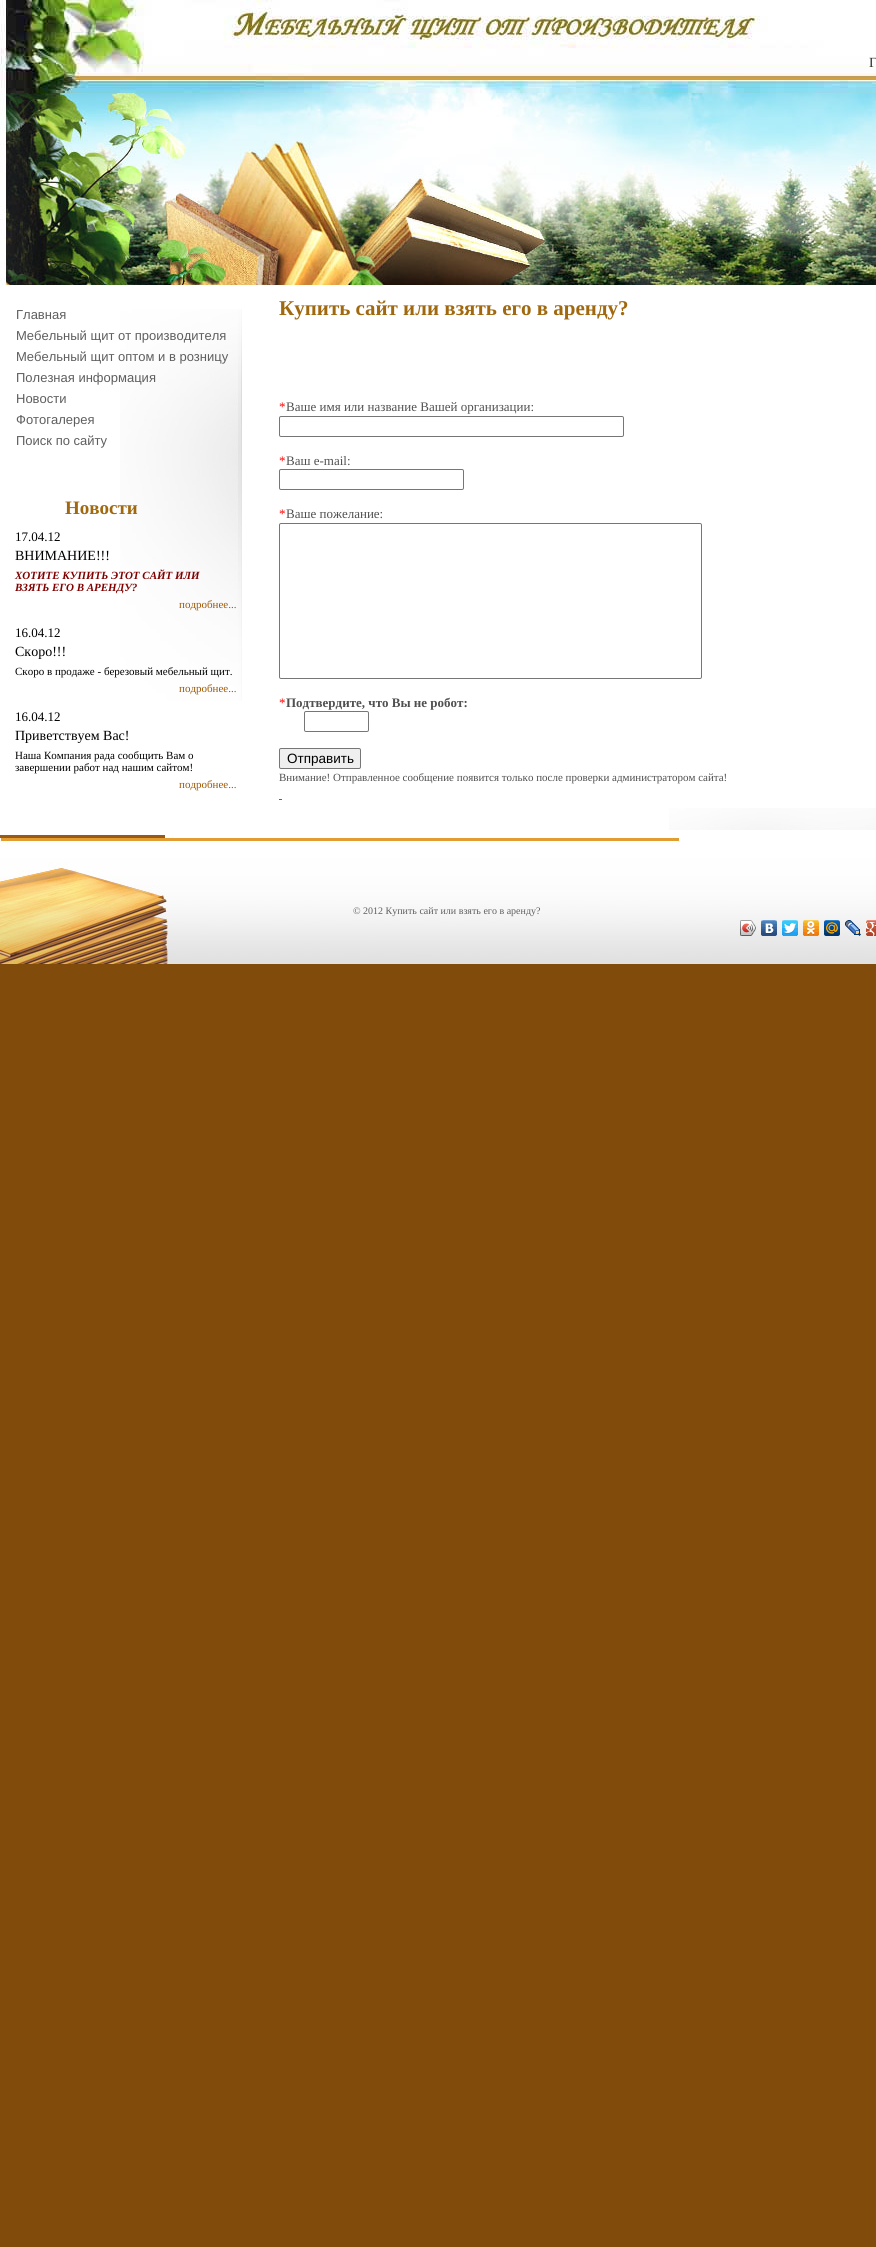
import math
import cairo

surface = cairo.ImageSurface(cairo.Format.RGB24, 876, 2247)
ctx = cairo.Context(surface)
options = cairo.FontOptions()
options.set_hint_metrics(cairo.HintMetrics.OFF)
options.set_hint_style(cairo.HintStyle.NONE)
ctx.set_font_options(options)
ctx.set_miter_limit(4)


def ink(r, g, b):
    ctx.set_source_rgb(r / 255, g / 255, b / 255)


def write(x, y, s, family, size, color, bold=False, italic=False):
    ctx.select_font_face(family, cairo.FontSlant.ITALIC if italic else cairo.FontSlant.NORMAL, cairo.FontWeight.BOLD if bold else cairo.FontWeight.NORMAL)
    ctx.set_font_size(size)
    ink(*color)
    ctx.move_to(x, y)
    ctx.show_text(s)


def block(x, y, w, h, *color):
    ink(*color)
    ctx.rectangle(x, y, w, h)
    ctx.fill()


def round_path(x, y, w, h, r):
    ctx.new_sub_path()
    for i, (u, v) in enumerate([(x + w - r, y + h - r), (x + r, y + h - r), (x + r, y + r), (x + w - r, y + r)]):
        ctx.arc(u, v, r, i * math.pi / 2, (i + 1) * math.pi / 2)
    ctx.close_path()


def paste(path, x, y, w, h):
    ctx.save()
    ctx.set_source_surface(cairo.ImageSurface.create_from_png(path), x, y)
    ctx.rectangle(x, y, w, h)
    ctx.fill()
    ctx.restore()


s1 = dict(family="Liberation Serif", size=14, color=(51, 51, 51))
s2 = dict(family="Liberation Sans", size=13, color=(94, 94, 94))
s3 = dict(family="Liberation Serif", size=19, color=(161, 105, 15), bold=True)
s4 = dict(family="Liberation Serif", size=13, color=(0, 0, 0))
s5 = dict(family="Liberation Serif", size=14, color=(0, 0, 0))
s6 = dict(family="Liberation Serif", size=11, color=(128, 0, 0), bold=True, italic=True)
s7 = dict(family="Liberation Serif", size=11, color=(160, 86, 1))
s8 = dict(family="Liberation Serif", size=11, color=(0, 0, 0))
s9 = dict(family="Liberation Serif", size=21, color=(161, 105, 15), bold=True)
s10 = dict(family="Liberation Serif", size=13, color=(255, 0, 0))
s11 = dict(family="Liberation Serif", size=13, color=(80, 80, 80))
s12 = dict(family="Liberation Serif", size=13, color=(80, 80, 80), bold=True)
s13 = dict(family="Liberation Sans", size=13.5, color=(0, 0, 0))
s14 = dict(family="Liberation Serif", size=11, color=(80, 80, 80))
s15 = dict(family="Liberation Serif", size=10, color=(94, 94, 94))

ink(129, 75, 12)
ctx.paint()
block(0, 285, 876, 553, 255, 255, 255)
paste("pic1.png", 0, 0, 876, 93)
write(869, 67, "Г", **s1)
paste("pic2.png", 0, 93, 876, 192)
paste("pic3.png", 0, 838, 876, 126)
paste("pic4.png", 120, 309, 122, 392)
write(16, 319, "Главная", **s2)
write(16, 340, "Мебельный щит от производителя", **s2)
write(16, 361, "Мебельный щит оптом и в розницу", **s2)
write(16, 382, "Полезная информация", **s2)
write(16, 403, "Новости", **s2)
write(16, 424, "Фотогалерея", **s2)
write(16, 445, "Поиск по сайту", **s2)
write(65, 514, "Новости", **s3)
write(15, 541, "17.04.12", **s4)
write(15, 560, "ВНИМАНИЕ!!!", **s5)
write(15, 579, "ХОТИТЕ КУПИТЬ ЭТОТ САЙТ ИЛИ", **s6)
write(15, 591, "ВЗЯТЬ ЕГО В АРЕНДУ?", **s6)
write(179, 608, "подробнее...", **s7)
write(15, 637, "16.04.12", **s4)
write(15, 656, "Скоро!!!", **s5)
write(15, 675, "Скоро в продаже - березовый мебельный щит.", **s8)
write(179, 692, "подробнее...", **s7)
write(15, 721, "16.04.12", **s4)
write(15, 740, "Приветствуем Вас!", **s5)
write(15, 759, "Наша Компания рада сообщить Вам о", **s8)
write(15, 771, "завершении работ над нашим сайтом!", **s8)
write(179, 788, "подробнее...", **s7)
paste("pic5.png", 669, 808, 207, 22)
write(279, 315, "Купить сайт или взять его в аренду?", **s9)
write(279, 411, "*", **s10)
write(286, 411, "Ваше имя или название Вашей организации:", **s11)
round_path(279.5, 416.5, 344, 20, 1.5)
ink(118, 118, 118)
ctx.set_line_width(1)
ctx.stroke()
write(279, 465, "*", **s10)
write(286, 465, "Ваш e-mail:", **s11)
round_path(279.5, 469.5, 184, 20, 1.5)
ink(118, 118, 118)
ctx.stroke()
write(279, 518, "*", **s10)
write(286, 518, "Ваше пожелание:", **s11)
round_path(279.5, 523.5, 422, 155, 1.5)
ink(118, 118, 118)
ctx.stroke()
write(279, 707, "*", **s10)
write(286, 707, "Подтвердите, что Вы не робот:", **s12)
round_path(304.5, 711.5, 64, 20, 1.5)
ink(118, 118, 118)
ctx.stroke()
ink(239, 239, 239)
round_path(279.5, 748.5, 81, 20, 1.5)
ctx.fill_preserve()
ink(118, 118, 118)
ctx.stroke()
write(287, 763, "Отправить", **s13)
write(279, 781, "Внимание! Отправленное сообщение появится только после проверки администратором сайта!", **s14)
block(279, 799, 3, 1, 160, 86, 1)
block(0, 835, 165, 3, 155, 89, 22)
write(353, 914, "© 2012 Купить сайт или взять его в аренду?", **s15)
paste("pic6.png", 740, 920, 16, 16)
paste("pic7.png", 740, 920, 16, 16)
paste("pic8.png", 761, 920, 16, 16)
paste("pic9.png", 782, 920, 16, 16)
paste("pic10.png", 803, 920, 16, 16)
paste("pic11.png", 824, 920, 16, 16)
paste("pic12.png", 845, 920, 16, 16)
paste("pic13.png", 866, 920, 10, 16)
surface.write_to_png("screenshot.png")
